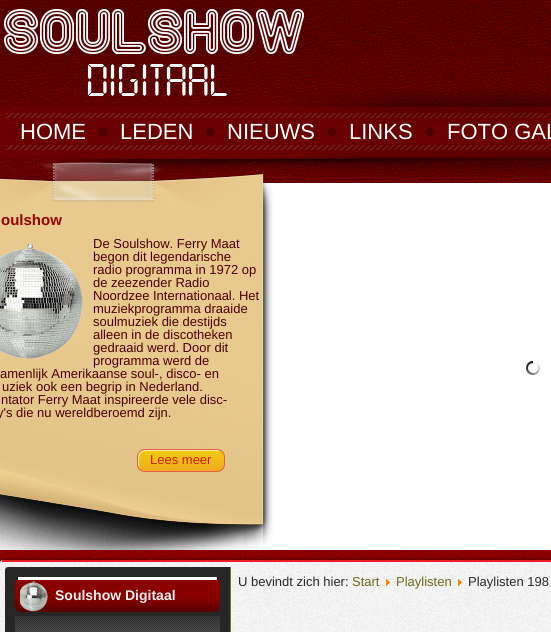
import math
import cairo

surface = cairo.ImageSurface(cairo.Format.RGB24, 551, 632)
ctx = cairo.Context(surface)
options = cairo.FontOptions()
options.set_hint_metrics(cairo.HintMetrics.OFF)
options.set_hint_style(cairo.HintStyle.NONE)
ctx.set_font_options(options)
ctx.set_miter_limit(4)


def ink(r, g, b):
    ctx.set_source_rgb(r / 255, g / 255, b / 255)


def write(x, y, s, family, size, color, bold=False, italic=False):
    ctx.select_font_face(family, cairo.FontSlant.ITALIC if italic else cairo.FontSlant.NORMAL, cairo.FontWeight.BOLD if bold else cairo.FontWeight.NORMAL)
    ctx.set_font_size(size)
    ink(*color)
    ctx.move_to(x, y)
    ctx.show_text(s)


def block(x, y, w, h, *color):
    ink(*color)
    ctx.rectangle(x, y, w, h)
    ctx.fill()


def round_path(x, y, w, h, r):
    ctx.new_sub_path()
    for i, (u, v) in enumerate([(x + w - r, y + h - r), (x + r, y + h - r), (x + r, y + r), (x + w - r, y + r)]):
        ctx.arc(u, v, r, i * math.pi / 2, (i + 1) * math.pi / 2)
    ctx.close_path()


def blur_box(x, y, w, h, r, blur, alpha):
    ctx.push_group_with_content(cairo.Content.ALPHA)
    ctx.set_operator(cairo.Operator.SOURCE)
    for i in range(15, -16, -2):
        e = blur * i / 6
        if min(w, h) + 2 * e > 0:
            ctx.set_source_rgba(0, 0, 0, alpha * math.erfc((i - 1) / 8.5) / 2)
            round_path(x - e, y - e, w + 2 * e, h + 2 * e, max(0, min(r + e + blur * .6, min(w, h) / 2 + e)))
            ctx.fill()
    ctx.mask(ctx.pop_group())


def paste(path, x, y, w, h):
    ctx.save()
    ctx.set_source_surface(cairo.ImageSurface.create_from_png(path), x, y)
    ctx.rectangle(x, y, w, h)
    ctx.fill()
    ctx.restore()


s1 = dict(family="Liberation Sans", size=22, color=(255, 255, 255))
s2 = dict(family="Liberation Sans", size=15, color=(153, 0, 0), bold=True)
s3 = dict(family="Liberation Sans", size=13, color=(77, 0, 0))
s4 = dict(family="Liberation Sans", size=13, color=(201, 34, 0))
s5 = dict(family="Liberation Sans", size=13, color=(41, 41, 41))
s6 = dict(family="Liberation Sans", size=13, color=(109, 106, 24))
s7 = dict(family="Liberation Sans", size=14, color=(240, 240, 240), bold=True)

ink(255, 255, 255)
ctx.paint()
paste("pic1.png", 0, 0, 551, 563)
paste("pic8.png", 6, 113, 545, 38)
paste("pic7.png", 289, 88, 262, 38)
paste("pic2.png", 4, 9, 300, 87)
paste("pic10.png", 55, 159, 496, 17)
paste("pic9.png", 258, 140, 293, 39)
ctx.set_source_rgba(0.459, 0, 0, 0.5)
round_path(0, 107, 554, 50, 3)
ctx.fill()
write(20, 139, "HOME", **s1)
paste("pic3.png", 98, 127, 10, 10)
write(120, 139, "LEDEN", **s1)
paste("pic4.png", 205, 127, 10, 10)
write(227, 139, "NIEUWS", **s1)
paste("pic5.png", 327, 127, 10, 10)
write(349, 139, "LINKS", **s1)
paste("pic6.png", 425, 127, 10, 10)
write(447, 139, "FOTO GAL", **s1)
block(0, 183, 551, 367, 255, 255, 255)
paste("pic11.png", 0, 161, 273, 389)
paste("pic12.png", 526, 361, 14, 14)
write(1, 225, "oulshow", **s2)
paste("pic13.png", 0, 243, 83, 116)
write(93, 248, "De Soulshow. Ferry Maat", **s3)
write(93, 261, "begon dit legendarische", **s3)
write(93, 274, "radio programma in 1972 op", **s3)
write(93, 287, "de zeezender Radio", **s3)
write(93, 300, "Noordzee Internationaal. Het", **s3)
write(93, 313, "muziekprogramma draaide", **s3)
write(93, 326, "soulmuziek die destijds", **s3)
write(93, 339, "alleen in de discotheken", **s3)
write(93, 352, "gedraaid werd. Door dit", **s3)
write(93, 365, "programma werd de", **s3)
write(0, 378, "amenlijk Amerikaanse soul-, disco- en", **s3)
write(2, 391, "uziek ook een begrip in Nederland.", **s3)
write(1, 404, "ntator Ferry Maat inspireerde vele disc-", **s3)
write(-3, 417, "y's die nu wereldberoemd zijn.", **s3)
ctx.save()
round_path(137, 449, 88, 23, 8)
ctx.clip()
gradient = cairo.LinearGradient(138, 450, 138, 471)
gradient.add_color_stop_rgba(0.05, 0.941, 0.788, 0.067, 1)
gradient.add_color_stop_rgba(1, 0.949, 0.671, 0.118, 1)
ctx.set_source(gradient)
ctx.rectangle(137, 450, 88, 21)
ctx.fill()
ctx.restore()
ink(249, 236, 160)
ctx.new_path()
ctx.move_to(146, 451)
ctx.line_to(218, 451)
ctx.curve_to(220, 451, 221, 451, 222, 452)
ctx.curve_to(221, 451, 219, 450, 217, 450)
ctx.line_to(145, 450)
ctx.curve_to(141, 450, 138, 453, 138, 457)
ctx.line_to(138, 464)
ctx.curve_to(138, 466, 139, 468, 140, 469)
ctx.curve_to(139, 467, 139, 465, 139, 462)
ctx.curve_to(139, 457, 139, 451, 146, 451)
ctx.close_path()
ctx.fill()
round_path(137.5, 449.5, 87, 22, 7.5)
ink(230, 95, 68)
ctx.set_line_width(1)
ctx.stroke()
write(150, 464, "Lees meer", **s4)
ink(0, 0, 0)
blur_box(-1, 559, 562, 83, 5, 1.5, 0.4)
paste("pic14.png", 0, 560, 551, 72)
ctx.set_source_rgba(0.929, 0.047, 0.094, 0.92)
ctx.rectangle(2, 560, 549, 2)
ctx.fill()
write(238, 586, "U bevindt zich hier:", **s5)
write(352, 586, "Start", **s6)
paste("pic15.png", 386, 579, 4, 7)
write(396, 586, "Playlisten", **s6)
paste("pic16.png", 458, 579, 4, 7)
write(468, 586, "Playlisten 198", **s5)
ink(38, 38, 38)
ctx.new_path()
ctx.move_to(8, 567)
ctx.line_to(231, 567)
ctx.line_to(231, 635)
ctx.line_to(5, 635)
ctx.line_to(5, 570)
ctx.curve_to(5, 568.5, 6.5, 567, 8, 567)
ctx.close_path()
ctx.fill()
block(230, 567, 1, 65, 125, 122, 28)
ctx.save()
round_path(15, 577, 205, 35, 6)
ctx.clip()
gradient = cairo.LinearGradient(118, 580, 118, 612)
gradient.add_color_stop_rgba(0, 0.541, 0, 0, 1)
gradient.add_color_stop_rgba(0.5, 0.541, 0, 0, 1)
gradient.add_color_stop_rgba(0.6, 0.522, 0, 0, 1)
gradient.add_color_stop_rgba(1, 0.341, 0, 0, 1)
ctx.set_source(gradient)
ctx.new_path()
ctx.move_to(15, 580)
ctx.line_to(220, 580)
ctx.line_to(220, 606)
ctx.curve_to(220, 609.5, 217.5, 612, 214, 612)
ctx.line_to(21, 612)
ctx.curve_to(17.5, 612, 15, 609.5, 15, 606)
ctx.close_path()
ctx.fill()
ctx.restore()
block(18, 577, 199, 3, 255, 255, 255)
paste("pic17.png", 20, 580, 28, 32)
write(55, 600, "Soulshow Digitaal", **s7)
paste("pic18.png", 15, 616, 205, 16)
surface.write_to_png("screenshot.png")
